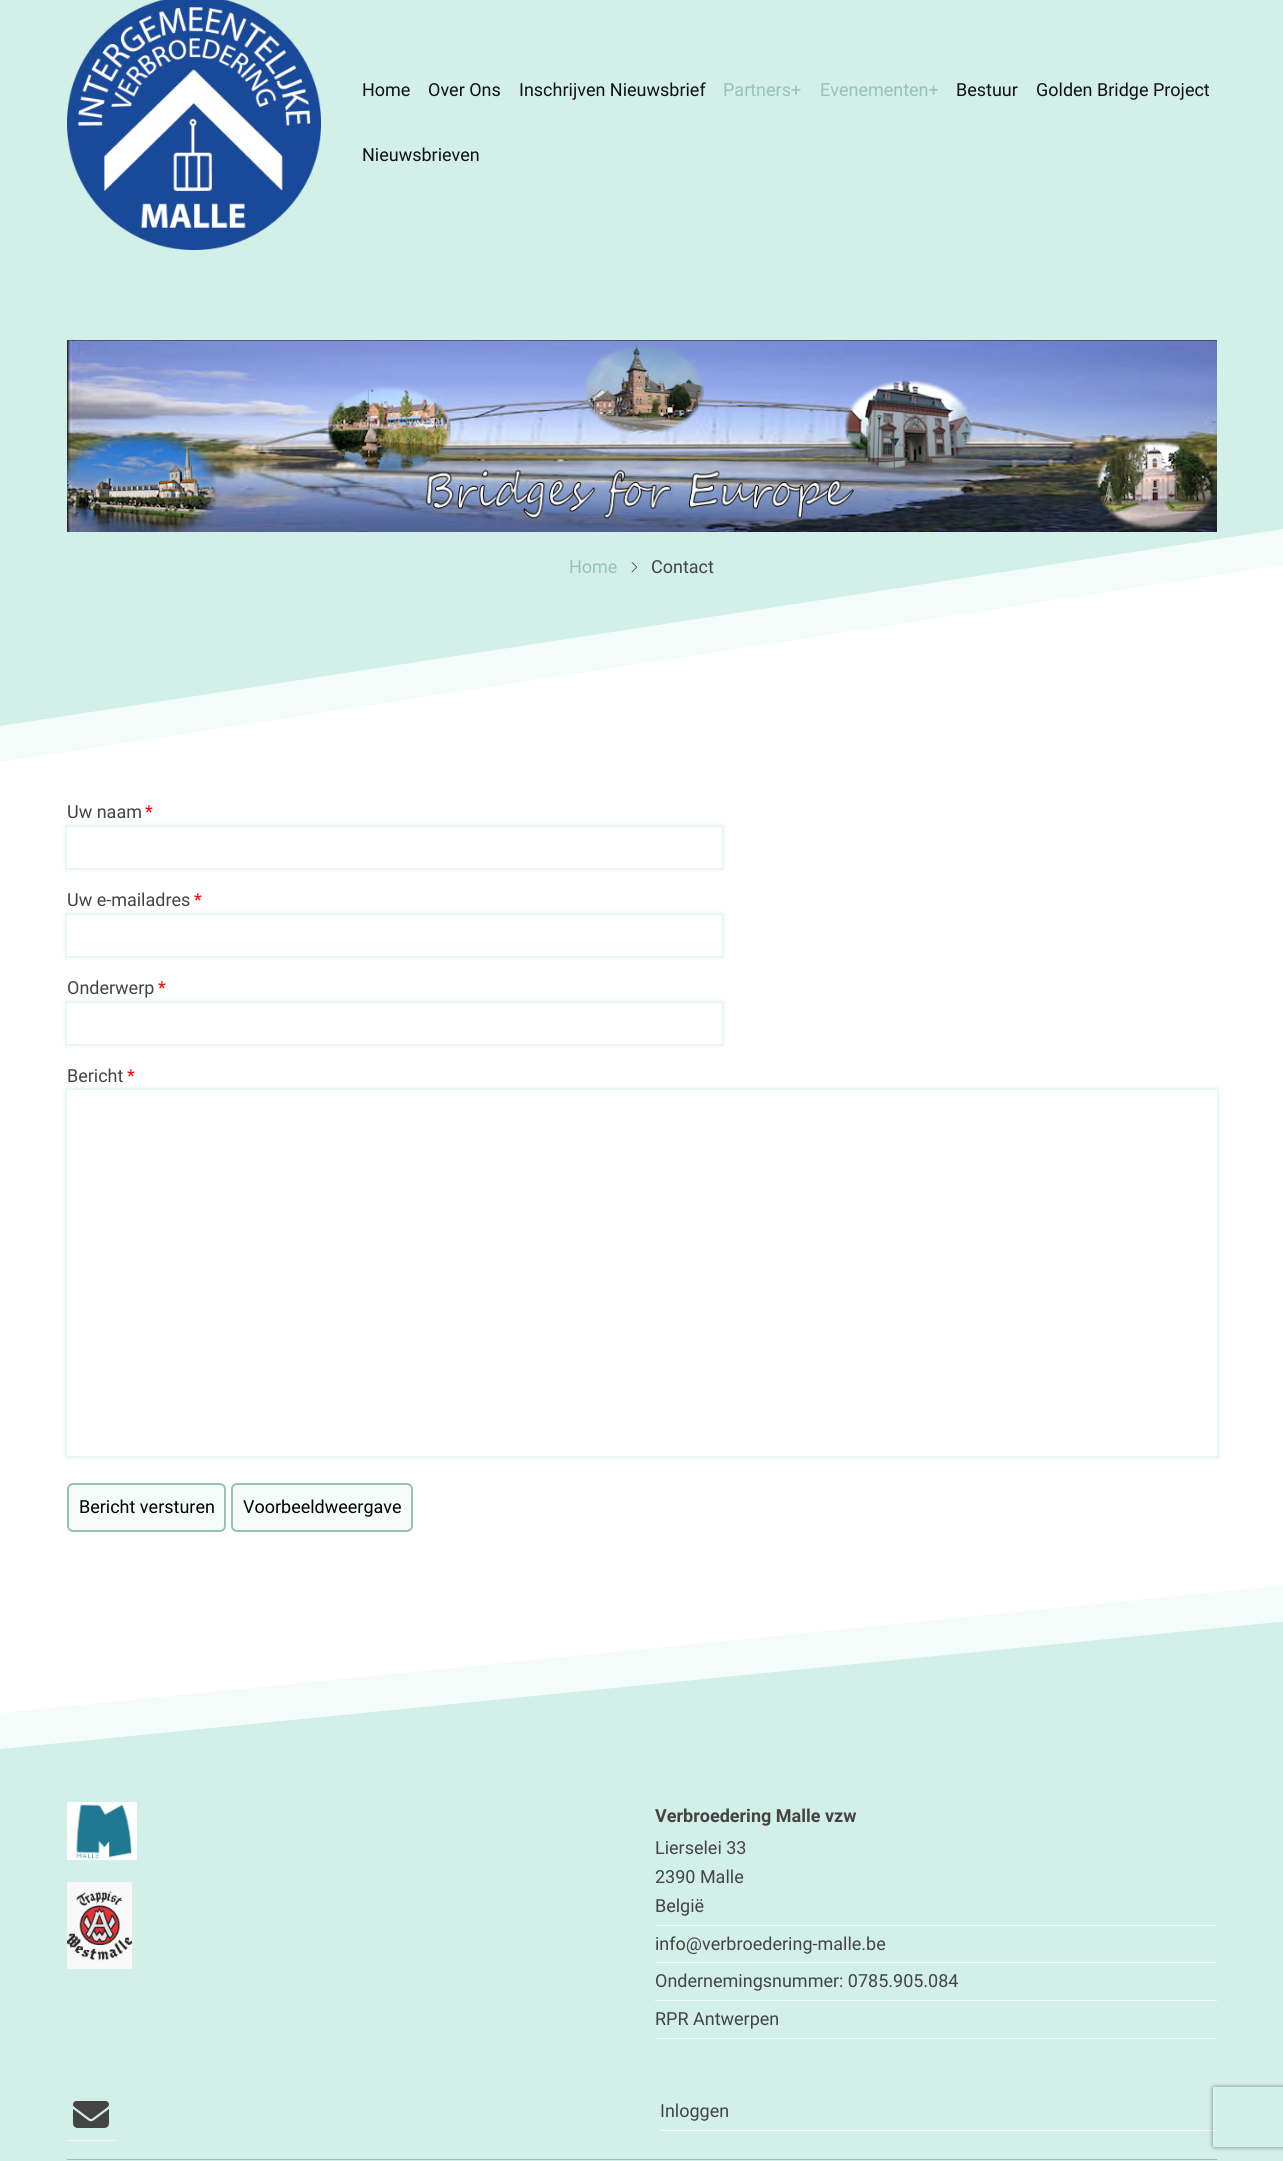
import math
import cairo

surface = cairo.ImageSurface(cairo.Format.RGB24, 1283, 2161)
ctx = cairo.Context(surface)
options = cairo.FontOptions()
options.set_hint_metrics(cairo.HintMetrics.OFF)
options.set_hint_style(cairo.HintStyle.NONE)
ctx.set_font_options(options)
ctx.set_miter_limit(4)


def ink(r, g, b):
    ctx.set_source_rgb(r / 255, g / 255, b / 255)


def write(x, y, s, family, size, color, bold=False, italic=False):
    ctx.select_font_face(family, cairo.FontSlant.ITALIC if italic else cairo.FontSlant.NORMAL, cairo.FontWeight.BOLD if bold else cairo.FontWeight.NORMAL)
    ctx.set_font_size(size)
    ink(*color)
    ctx.move_to(x, y)
    ctx.show_text(s)


def block(x, y, w, h, *color):
    ink(*color)
    ctx.rectangle(x, y, w, h)
    ctx.fill()


def round_path(x, y, w, h, r):
    ctx.new_sub_path()
    for i, (u, v) in enumerate([(x + w - r, y + h - r), (x + r, y + h - r), (x + r, y + r), (x + w - r, y + r)]):
        ctx.arc(u, v, r, i * math.pi / 2, (i + 1) * math.pi / 2)
    ctx.close_path()


def blur_box(x, y, w, h, r, blur, alpha):
    ctx.push_group_with_content(cairo.Content.ALPHA)
    ctx.set_operator(cairo.Operator.SOURCE)
    for i in range(15, -16, -2):
        e = blur * i / 6
        if min(w, h) + 2 * e > 0:
            ctx.set_source_rgba(0, 0, 0, alpha * math.erfc((i - 1) / 8.5) / 2)
            round_path(x - e, y - e, w + 2 * e, h + 2 * e, max(0, min(r + e + blur * .6, min(w, h) / 2 + e)))
            ctx.fill()
    ctx.mask(ctx.pop_group())


def paste(path, x, y, w, h):
    ctx.save()
    ctx.set_source_surface(cairo.ImageSurface.create_from_png(path), x, y)
    ctx.rectangle(x, y, w, h)
    ctx.fill()
    ctx.restore()


s1 = dict(family="Roboto", size=18, color=(17, 17, 17))
s2 = dict(family="Roboto", size=18, color=(151, 194, 184))
s3 = dict(family="Roboto", size=18, color=(68, 68, 68))
s4 = dict(family="Roboto", size=18, color=(255, 0, 0))
s5 = dict(family="Roboto", size=18, color=(0, 0, 0))
s6 = dict(family="Roboto", size=18, color=(68, 68, 68), bold=True)

ink(255, 255, 255)
ctx.paint()
block(0, 0, 1283, 268, 210, 239, 232)
paste("pic1.png", 67, 0, 254, 250)
write(362, 96, "Home", **s1)
write(428, 96, "Over Ons", **s1)
write(519, 96, "Inschrijven Nieuwsbrief", **s1)
write(723, 96, "Partners+", **s2)
write(820, 96, "Evenementen+", **s2)
write(956, 96, "Bestuur", **s1)
write(1036, 96, "Golden Bridge Project", **s1)
write(362, 161, "Nieuwsbrieven", **s1)
ink(244, 252, 250)
ctx.new_path()
ctx.move_to(0, 268)
ctx.line_to(0, 762)
ctx.line_to(1283, 565)
ctx.line_to(1283, 268)
ctx.close_path()
ctx.fill()
ink(210, 239, 232)
ctx.new_path()
ctx.move_to(0, 268)
ctx.line_to(0, 726)
ctx.line_to(1283, 529)
ctx.line_to(1283, 268)
ctx.close_path()
ctx.fill()
paste("pic2.png", 67, 340, 1150, 192)
write(569, 573, "Home", **s2)
paste("pic3.png", 631, 562, 7, 11)
write(651, 573, "Contact", **s3)
write(67, 818, "Uw naam", **s3)
write(145, 818, "*", **s4)
ctx.save()
ctx.set_fill_rule(cairo.FillRule.EVEN_ODD)
ctx.new_path()
ctx.move_to(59, 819)
ctx.line_to(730, 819)
ctx.line_to(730, 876)
ctx.line_to(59, 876)
ctx.close_path()
ctx.move_to(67, 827)
ctx.line_to(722, 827)
ctx.line_to(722, 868)
ctx.line_to(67, 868)
ctx.close_path()
ctx.clip()
ink(210, 239, 232)
blur_box(66, 826, 657, 43, 0, 2, 1)
ctx.restore()
write(67, 906, "Uw e-mailadres", **s3)
write(194, 906, "*", **s4)
ctx.save()
ctx.set_fill_rule(cairo.FillRule.EVEN_ODD)
ctx.new_path()
ctx.move_to(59, 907)
ctx.line_to(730, 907)
ctx.line_to(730, 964)
ctx.line_to(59, 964)
ctx.close_path()
ctx.move_to(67, 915)
ctx.line_to(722, 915)
ctx.line_to(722, 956)
ctx.line_to(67, 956)
ctx.close_path()
ctx.clip()
ink(210, 239, 232)
blur_box(66, 914, 657, 43, 0, 2, 1)
ctx.restore()
write(67, 994, "Onderwerp", **s3)
write(158, 994, "*", **s4)
ctx.save()
ctx.set_fill_rule(cairo.FillRule.EVEN_ODD)
ctx.new_path()
ctx.move_to(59, 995)
ctx.line_to(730, 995)
ctx.line_to(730, 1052)
ctx.line_to(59, 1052)
ctx.close_path()
ctx.move_to(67, 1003)
ctx.line_to(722, 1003)
ctx.line_to(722, 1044)
ctx.line_to(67, 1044)
ctx.close_path()
ctx.clip()
ink(210, 239, 232)
blur_box(66, 1002, 657, 43, 0, 2, 1)
ctx.restore()
write(67, 1082, "Bericht", **s3)
write(127, 1082, "*", **s4)
ctx.save()
ctx.set_fill_rule(cairo.FillRule.EVEN_ODD)
ctx.new_path()
ctx.move_to(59, 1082)
ctx.line_to(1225, 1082)
ctx.line_to(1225, 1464)
ctx.line_to(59, 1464)
ctx.close_path()
ctx.move_to(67, 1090)
ctx.line_to(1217, 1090)
ctx.line_to(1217, 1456)
ctx.line_to(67, 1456)
ctx.close_path()
ctx.clip()
ink(210, 239, 232)
blur_box(66, 1089, 1152, 368, 0, 2, 1)
ctx.restore()
ink(244, 252, 250)
round_path(68, 1484, 157, 47, 5)
ctx.fill_preserve()
ink(151, 194, 184)
ctx.stroke()
write(79, 1513, "Bericht versturen", **s5)
ink(244, 252, 250)
round_path(232, 1484, 180, 47, 5)
ctx.fill_preserve()
ink(151, 194, 184)
ctx.stroke()
write(243, 1513, "Voorbeeldweergave", **s5)
ink(244, 252, 250)
ctx.new_path()
ctx.move_to(0, 1713)
ctx.line_to(0, 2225)
ctx.line_to(1283, 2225)
ctx.line_to(1283, 1586)
ctx.line_to(1278, 1586)
ctx.close_path()
ctx.fill()
ink(210, 239, 232)
ctx.new_path()
ctx.move_to(0, 1749)
ctx.line_to(0, 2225)
ctx.line_to(1283, 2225)
ctx.line_to(1283, 1622)
ctx.line_to(1278, 1622)
ctx.close_path()
ctx.fill()
paste("pic4.png", 67, 1802, 70, 58)
paste("pic5.png", 67, 1882, 65, 87)
write(655, 1822, "Verbroedering Malle vzw", **s6)
block(655, 1925, 562, 1, 244, 252, 250)
write(655, 1854, "Lierselei 33", **s3)
write(655, 1883, "2390 Malle", **s3)
write(655, 1912, "België", **s3)
block(655, 1962, 562, 1, 244, 252, 250)
write(655, 1950, "info@verbroedering-malle.be", **s3)
block(655, 2000, 562, 1, 244, 252, 250)
write(655, 1987, "Ondernemingsnummer: 0785.905.084", **s3)
block(655, 2038, 562, 1, 244, 252, 250)
write(655, 2025, "RPR Antwerpen", **s3)
block(67, 2140, 48, 1, 244, 252, 250)
paste("pic6.png", 73, 2101, 36, 27)
block(660, 2130, 557, 1, 244, 252, 250)
write(660, 2117, "Inloggen", **s3)
block(67, 2159, 1150, 1, 151, 194, 184)
ctx.save()
ctx.set_fill_rule(cairo.FillRule.EVEN_ODD)
ctx.new_path()
ctx.move_to(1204, 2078)
ctx.line_to(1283, 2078)
ctx.line_to(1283, 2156)
ctx.line_to(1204, 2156)
ctx.close_path()
ctx.move_to(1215, 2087)
ctx.line_to(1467, 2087)
ctx.curve_to(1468, 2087, 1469, 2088, 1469, 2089)
ctx.line_to(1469, 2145)
ctx.curve_to(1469, 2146, 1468, 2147, 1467, 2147)
ctx.line_to(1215, 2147)
ctx.curve_to(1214, 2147, 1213, 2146, 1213, 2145)
ctx.line_to(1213, 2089)
ctx.curve_to(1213, 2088, 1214, 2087, 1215, 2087)
ctx.close_path()
ctx.clip()
ink(128, 128, 128)
blur_box(1213, 2087, 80, 60, 2, 2.5, 1)
ctx.restore()
surface.write_to_png("screenshot.png")
